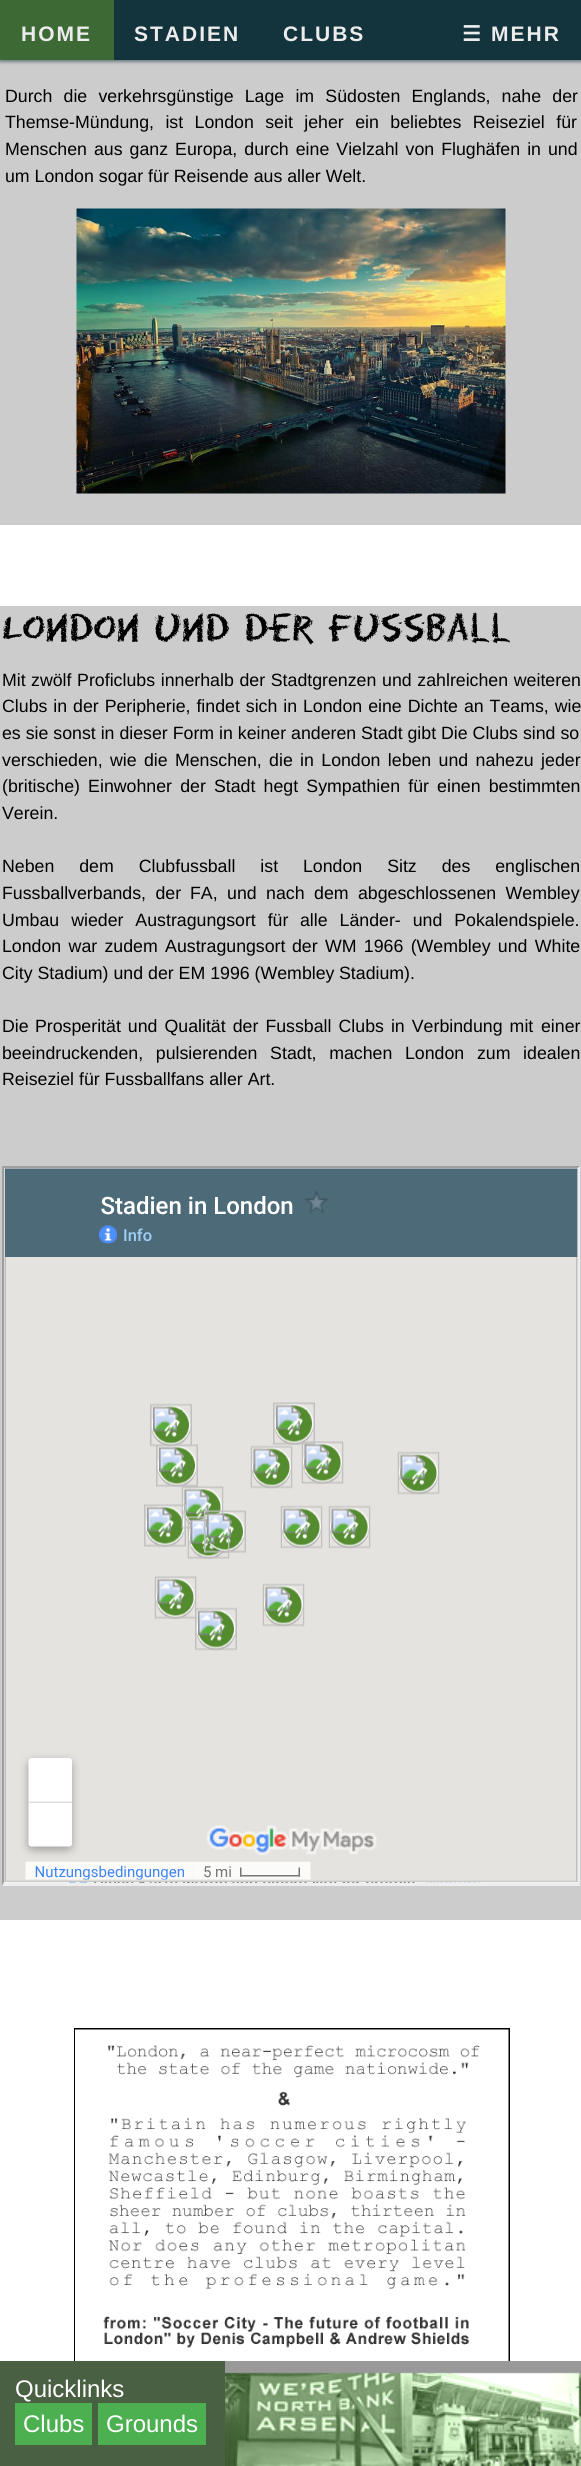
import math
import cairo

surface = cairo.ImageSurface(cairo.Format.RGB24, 581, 2466)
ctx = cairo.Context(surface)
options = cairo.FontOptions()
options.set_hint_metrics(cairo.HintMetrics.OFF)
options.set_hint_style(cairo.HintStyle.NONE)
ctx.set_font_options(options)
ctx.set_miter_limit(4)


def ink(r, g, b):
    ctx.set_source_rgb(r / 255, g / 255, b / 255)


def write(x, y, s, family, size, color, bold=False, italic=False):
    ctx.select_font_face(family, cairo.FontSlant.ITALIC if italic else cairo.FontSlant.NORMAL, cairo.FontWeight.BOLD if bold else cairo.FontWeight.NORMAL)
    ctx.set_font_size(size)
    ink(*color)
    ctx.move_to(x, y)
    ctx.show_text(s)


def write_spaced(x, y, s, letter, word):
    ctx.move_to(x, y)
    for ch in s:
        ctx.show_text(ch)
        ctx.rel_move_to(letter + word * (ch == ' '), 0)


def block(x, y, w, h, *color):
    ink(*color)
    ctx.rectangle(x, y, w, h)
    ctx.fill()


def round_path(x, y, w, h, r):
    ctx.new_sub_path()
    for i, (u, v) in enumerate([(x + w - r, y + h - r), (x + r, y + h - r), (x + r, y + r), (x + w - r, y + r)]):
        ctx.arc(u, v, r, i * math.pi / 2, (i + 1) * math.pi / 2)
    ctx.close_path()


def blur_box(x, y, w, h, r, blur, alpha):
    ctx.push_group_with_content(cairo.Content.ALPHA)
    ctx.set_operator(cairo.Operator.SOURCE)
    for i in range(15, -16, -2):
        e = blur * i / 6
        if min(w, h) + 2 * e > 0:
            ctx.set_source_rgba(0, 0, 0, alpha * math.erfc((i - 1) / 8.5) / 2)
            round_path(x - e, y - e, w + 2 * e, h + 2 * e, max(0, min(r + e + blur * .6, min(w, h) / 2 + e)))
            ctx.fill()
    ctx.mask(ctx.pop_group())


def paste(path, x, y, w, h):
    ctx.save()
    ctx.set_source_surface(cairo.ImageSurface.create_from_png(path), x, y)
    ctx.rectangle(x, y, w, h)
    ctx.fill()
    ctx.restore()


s1 = dict(family="Liberation Sans", size=17.75, color=(0, 0, 0))
s2 = dict(family="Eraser", size=36, color=(0, 0, 0))
s3 = dict(family="Liberation Sans", size=24, color=(255, 255, 255))

ink(255, 255, 255)
ctx.paint()
block(0, 60, 581, 465, 204, 204, 204)
ink(19, 51, 61)
blur_box(0, 2, 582, 60, 0, 1.5, 0.5)
block(114, 0, 307, 60, 19, 51, 61)
block(0, 0, 114, 60, 60, 105, 52)
ctx.select_font_face("Liberation Sans", cairo.FontSlant.NORMAL, cairo.FontWeight.BOLD)
ctx.set_font_size(21)
ink(236, 236, 236)
write_spaced(21, 41, "HOME", 2, 0)
write_spaced(134, 41, "STADIEN", 2, 0)
write_spaced(283, 41, "CLUBS", 2, 0)
gradient = cairo.LinearGradient(378, 33, 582, 33)
gradient.add_color_stop_rgba(0, 0.075, 0.2, 0.239, 0)
gradient.add_color_stop_rgba(0.21, 0.075, 0.2, 0.239, 1)
ctx.set_source(gradient)
ctx.rectangle(421, 0, 160, 60)
ctx.fill()
ctx.select_font_face("DejaVu Sans", cairo.FontSlant.NORMAL, cairo.FontWeight.BOLD)
ink(236, 236, 236)
write_spaced(462, 41, "☰", 2, 0)
ctx.select_font_face("Liberation Sans", cairo.FontSlant.NORMAL, cairo.FontWeight.BOLD)
write_spaced(491, 41, "MEHR", 2, 0)
ctx.select_font_face("Liberation Sans")
ctx.set_font_size(17.75)
ink(0, 0, 0)
write_spaced(5, 102, "Durch die verkehrsgünstige Lage im Südosten Englands, nahe der", 0, 6.25)
write_spaced(5, 128, "Themse-Mündung, ist London seit jeher ein beliebtes Reiseziel für", 0, 6.5)
write_spaced(5, 155, "Menschen aus ganz Europa, durch eine Vielzahl von Flughäfen in und", 0, 2.1)
write(5, 182, "um London sogar für Reisende aus aller Welt.", **s1)
paste("pic1.png", 76, 208, 430, 286)
block(0, 606, 581, 1314, 204, 204, 204)
write(2, 642, "London und der Fussball", **s2)
write(2, 686, "Mit", **s1)
write_spaced(31, 686, "zwölf Proficlubs innerhalb der Stadtgrenzen und zahlreichen weiteren", 0, 0.75)
write_spaced(2, 712, "Clubs in der Peripherie, findet sich in London eine Dichte an Teams, wie", 0, 1)
write(2, 739, "es sie sonst in dieser Form in keiner anderen Stadt gibt Die Clubs sind so", **s1)
write_spaced(2, 766, "verschieden, wie die Menschen, die in London leben und nahezu jeder", 0, 2.4)
write_spaced(2, 792, "(britische) Einwohner der Stadt hegt Sympathien für einen bestimmten", 0, 3.25)
write(2, 819, "Verein.", **s1)
write_spaced(2, 872, "Neben dem Clubfussball ist London Sitz des englischen", 0, 20)
write_spaced(2, 899, "Fussballverbands, der", 0, 4.5)
write_spaced(190, 899, "FA, und nach dem abgeschlossenen Wembley", 0, 4.5)
write_spaced(2, 926, "Umbau wieder Austragungsort für", 0, 7)
write_spaced(300, 926, "alle Länder- und Pokalendspiele.", 0, 7)
write_spaced(2, 952, "London war zudem Austragungsort", 0, 2.4)
write_spaced(292, 952, "der WM 1966 (Wembley und White", 0, 2.4)
write(2, 979, "City Stadium) und der EM 1996 (Wembley", **s1)
write(339, 979, "Stadium).", **s1)
write(2, 1032, "Die", **s1)
write_spaced(35, 1032, "Prosperität und Qualität der Fussball Clubs in Verbindung mit", 0, 2.1)
write(541, 1032, "einer", **s1)
write_spaced(2, 1059, "beeindruckenden, pulsierenden Stadt, machen London zum idealen", 0, 7.75)
write(2, 1085, "Reiseziel für Fussballfans aller Art.", **s1)
ink(159, 159, 159)
ctx.new_path()
ctx.move_to(2, 1166)
ctx.line_to(580, 1166)
ctx.line_to(578, 1168)
ctx.line_to(4, 1168)
ctx.close_path()
ctx.fill()
ink(238, 238, 238)
ctx.new_path()
ctx.move_to(580, 1166)
ctx.line_to(580, 1886)
ctx.line_to(578, 1882)
ctx.line_to(578, 1168)
ctx.close_path()
ctx.fill()
ctx.new_path()
ctx.move_to(580, 1886)
ctx.line_to(2, 1886)
ctx.line_to(4, 1882)
ctx.line_to(578, 1882)
ctx.close_path()
ctx.fill()
ink(159, 159, 159)
ctx.new_path()
ctx.move_to(2, 1886)
ctx.line_to(2, 1166)
ctx.line_to(4, 1168)
ctx.line_to(4, 1882)
ctx.close_path()
ctx.fill()
paste("pic2.png", 4, 1168, 574, 715)
ctx.rectangle(75, 2029, 434, 348)
ink(0, 0, 0)
ctx.stroke()
paste("pic3.png", 75, 2029, 434, 332)
block(0, 2361, 225, 105, 74, 96, 66)
write(15, 2397, "Quicklinks", **s3)
block(15, 2403, 77, 42, 76, 175, 80)
write(23, 2432, "Clubs", **s3)
block(98, 2403, 108, 42, 76, 175, 80)
write(106, 2432, "Grounds", **s3)
paste("pic4.png", 225, 2361, 356, 105)
surface.write_to_png("screenshot.png")
